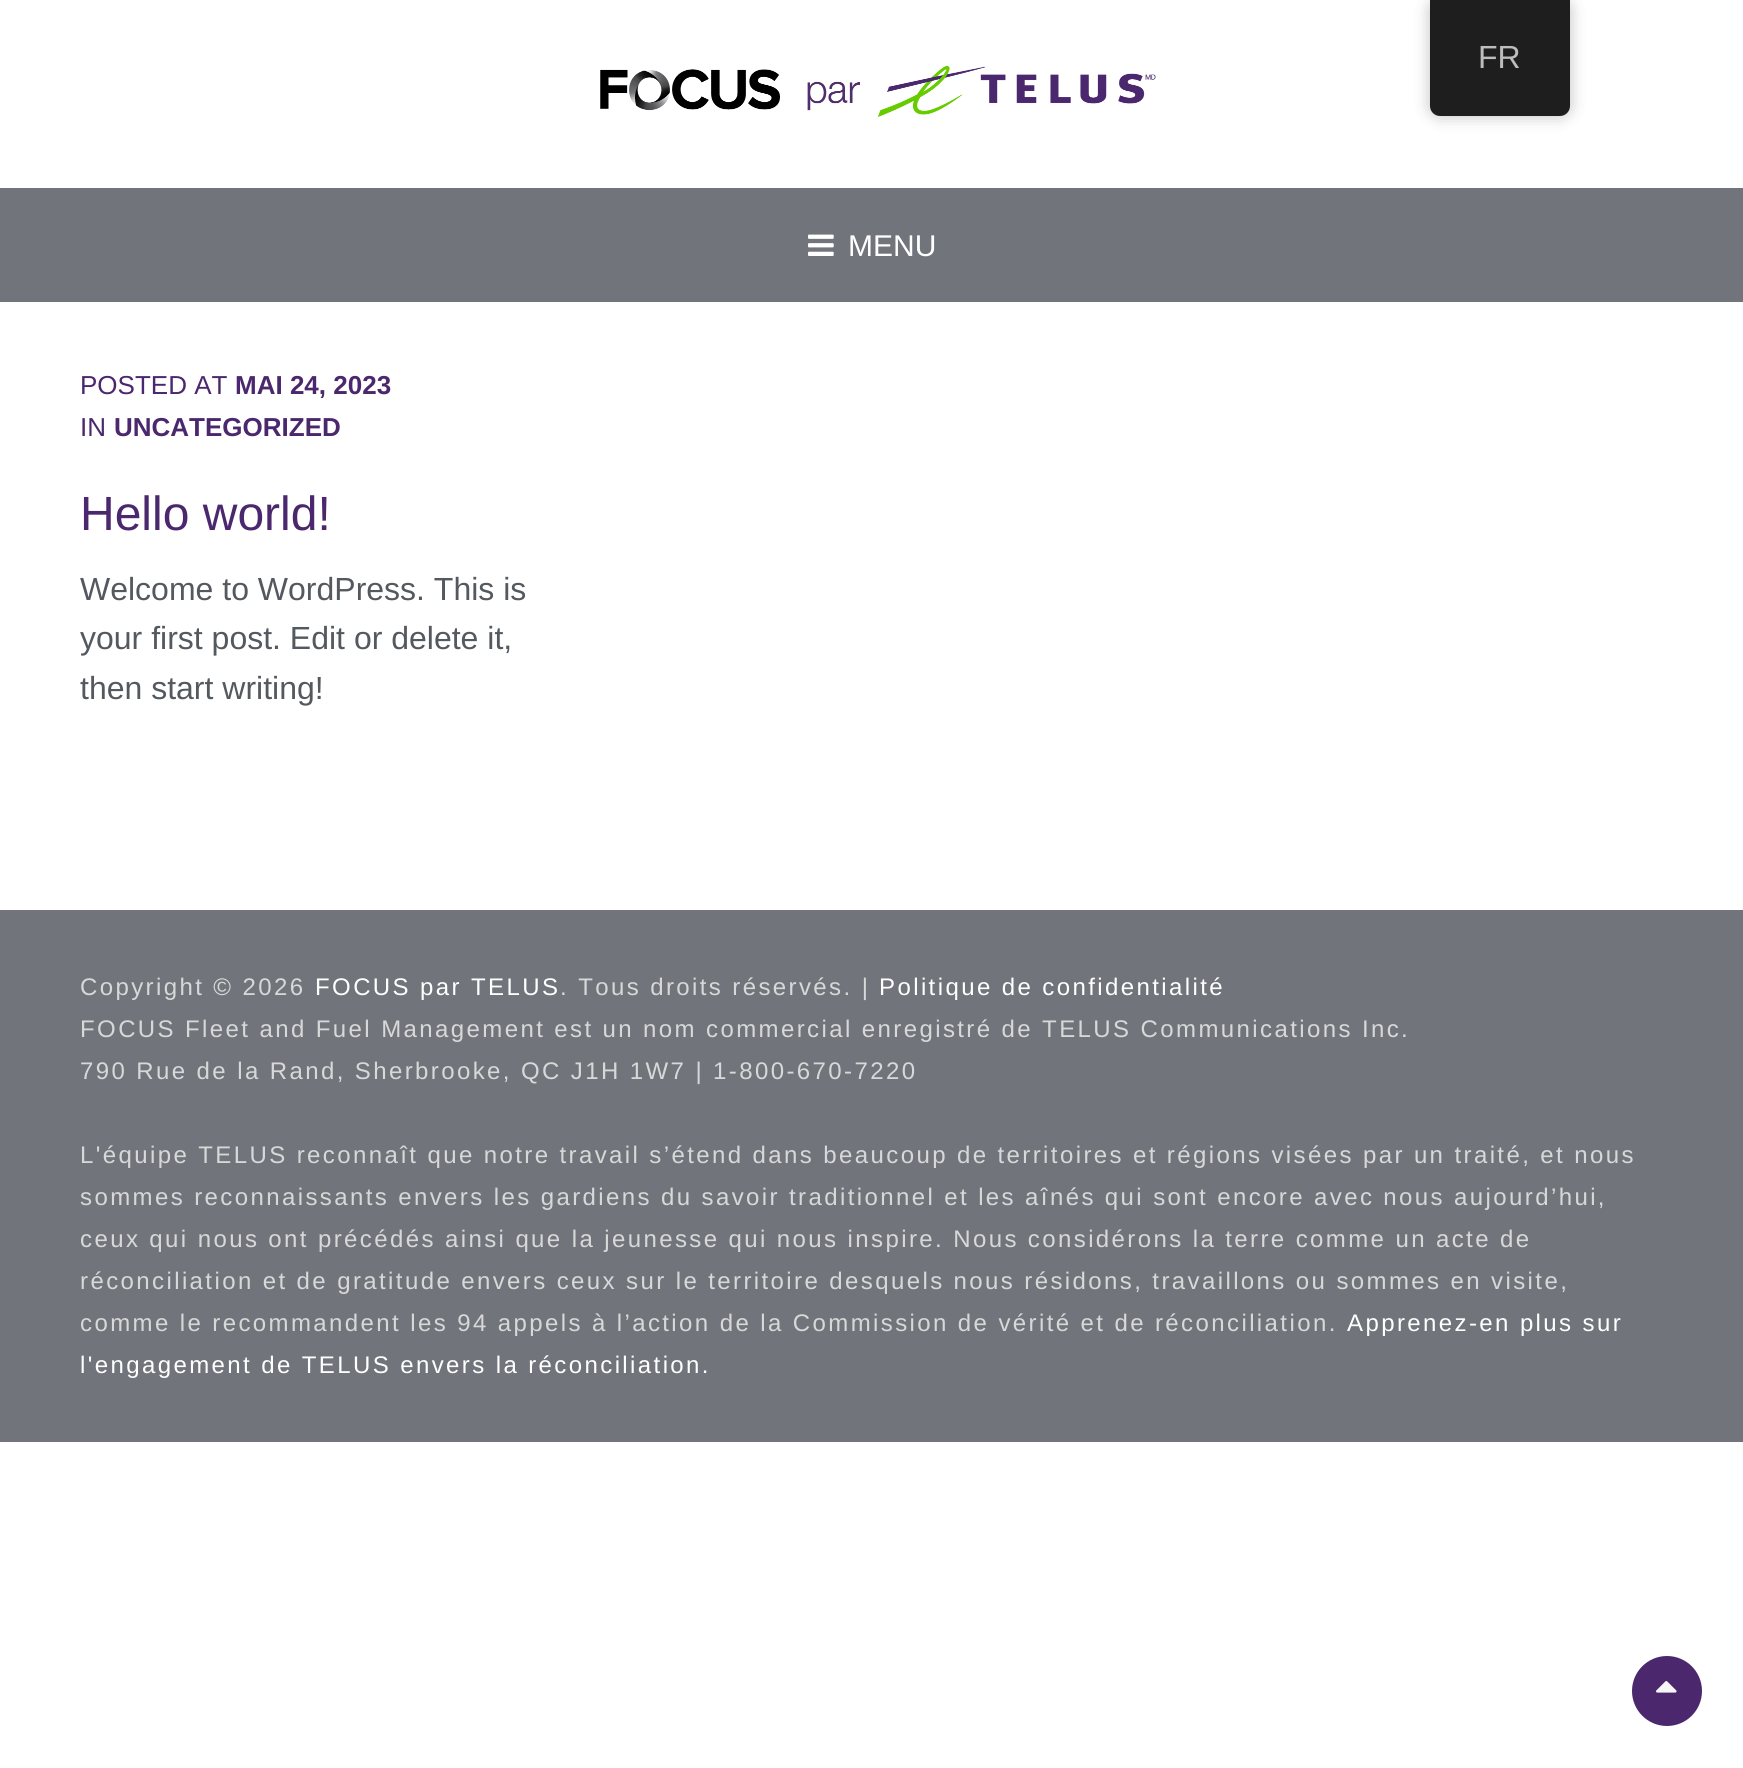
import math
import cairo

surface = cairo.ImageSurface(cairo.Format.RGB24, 1743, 1768)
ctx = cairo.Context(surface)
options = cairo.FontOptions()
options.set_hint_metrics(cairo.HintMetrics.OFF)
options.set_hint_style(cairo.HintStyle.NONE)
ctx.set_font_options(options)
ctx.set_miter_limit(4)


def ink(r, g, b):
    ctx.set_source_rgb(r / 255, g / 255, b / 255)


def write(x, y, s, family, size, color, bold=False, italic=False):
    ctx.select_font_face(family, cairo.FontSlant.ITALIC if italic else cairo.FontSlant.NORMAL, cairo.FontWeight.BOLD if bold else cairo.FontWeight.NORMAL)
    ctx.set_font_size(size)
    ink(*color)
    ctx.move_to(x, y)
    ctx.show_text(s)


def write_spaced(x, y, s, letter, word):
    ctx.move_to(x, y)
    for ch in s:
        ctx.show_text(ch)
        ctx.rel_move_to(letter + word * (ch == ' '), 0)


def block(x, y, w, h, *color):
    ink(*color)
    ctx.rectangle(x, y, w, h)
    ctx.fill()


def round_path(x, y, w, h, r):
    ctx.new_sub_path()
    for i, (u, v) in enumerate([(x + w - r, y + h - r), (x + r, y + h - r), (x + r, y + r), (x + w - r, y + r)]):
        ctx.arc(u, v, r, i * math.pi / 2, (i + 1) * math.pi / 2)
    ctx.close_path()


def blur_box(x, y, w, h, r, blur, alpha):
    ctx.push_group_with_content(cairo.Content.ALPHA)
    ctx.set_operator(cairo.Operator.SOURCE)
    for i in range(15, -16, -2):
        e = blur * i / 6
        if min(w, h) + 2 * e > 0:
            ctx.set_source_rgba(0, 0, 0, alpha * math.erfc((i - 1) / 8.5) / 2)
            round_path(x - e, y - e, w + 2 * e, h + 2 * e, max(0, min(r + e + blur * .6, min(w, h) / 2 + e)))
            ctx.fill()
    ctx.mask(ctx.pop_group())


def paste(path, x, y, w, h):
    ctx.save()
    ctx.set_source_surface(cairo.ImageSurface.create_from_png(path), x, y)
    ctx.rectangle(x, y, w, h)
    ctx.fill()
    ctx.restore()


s1 = dict(family="Liberation Sans", size=32, color=(189, 189, 189))
s2 = dict(family="Liberation Sans", size=30, color=(255, 255, 255))
s3 = dict(family="Liberation Sans", size=26, color=(75, 40, 109))
s4 = dict(family="Liberation Sans", size=26, color=(75, 40, 109), bold=True)
s5 = dict(family="Liberation Sans", size=48, color=(75, 40, 109))
s6 = dict(family="Liberation Sans", size=32, color=(84, 89, 95))

ink(255, 255, 255)
ctx.paint()
ink(0, 0, 0)
blur_box(1430, 0, 140, 116, 10, 8, 0.25)
ink(30, 30, 30)
ctx.new_path()
ctx.move_to(1430, 0)
ctx.line_to(1570, 0)
ctx.line_to(1570, 106)
ctx.curve_to(1570, 111.5, 1565.5, 116, 1560, 116)
ctx.line_to(1440, 116)
ctx.curve_to(1434.5, 116, 1430, 111.5, 1430, 106)
ctx.close_path()
ctx.fill()
write(1478, 68, "FR", **s1)
paste("pic1.png", 600, 65, 556, 52)
block(0, 188, 1743, 114, 113, 117, 123)
paste("pic2.png", 808, 234, 26, 22)
write(848, 256, "MENU", **s2)
write(80, 394, "POSTED AT", **s3)
write(235, 394, "MAI 24, 2023", **s4)
write(80, 436, "IN", **s3)
write(114, 436, "UNCATEGORIZED", **s4)
write(80, 530, "Hello world!", **s5)
write(80, 600, "Welcome to WordPress. This is", **s6)
write(80, 649, "your first post. Edit or delete it,", **s6)
write(80, 699, "then start writing!", **s6)
block(0, 910, 1743, 532, 113, 117, 123)
ctx.set_font_size(24)
ink(216, 216, 216)
write_spaced(80, 995, "Copyright © 2026", 2.4, 0)
ink(255, 255, 255)
write_spaced(315, 995, "FOCUS par TELUS", 2.4, 0)
ink(216, 216, 216)
write_spaced(560, 995, ". Tous droits réservés. |", 2.4, 0)
ink(255, 255, 255)
write_spaced(879, 995, "Politique de confidentialité", 2.4, 0)
ink(216, 216, 216)
write_spaced(80, 1037, "FOCUS Fleet and Fuel Management est un nom commercial enregistré de TELUS Communications Inc.", 2.4, 0)
write_spaced(80, 1079, "790 Rue de la Rand, Sherbrooke, QC J1H 1W7 | 1-800-670-7220", 2.4, 0)
write_spaced(80, 1163, "L'équipe TELUS reconnaît que notre travail s’étend dans beaucoup de territoires et régions visées par un traité, et nous", 2.4, 0)
write_spaced(80, 1205, "sommes reconnaissants envers les gardiens du savoir traditionnel et les aînés qui sont encore avec nous aujourd’hui,", 2.4, 0)
write_spaced(80, 1247, "ceux qui nous ont précédés ainsi que la jeunesse qui nous inspire. Nous considérons la terre comme un acte de", 2.4, 0)
write_spaced(80, 1289, "réconciliation et de gratitude envers ceux sur le territoire desquels nous résidons, travaillons ou sommes en visite,", 2.4, 0)
write_spaced(80, 1331, "comme le recommandent les 94 appels à l’action de la Commission de vérité et de réconciliation.", 2.4, 0)
ink(255, 255, 255)
write_spaced(1347, 1331, "Apprenez-en plus sur", 2.4, 0)
write_spaced(80, 1373, "l'engagement de TELUS envers la réconciliation.", 2.4, 0)
ink(75, 40, 109)
ctx.new_path()
ctx.arc(1667, 1691, 35, 0, 2 * math.pi)
ctx.fill()
paste("pic3.png", 1656, 1681, 21, 12)
surface.write_to_png("screenshot.png")
